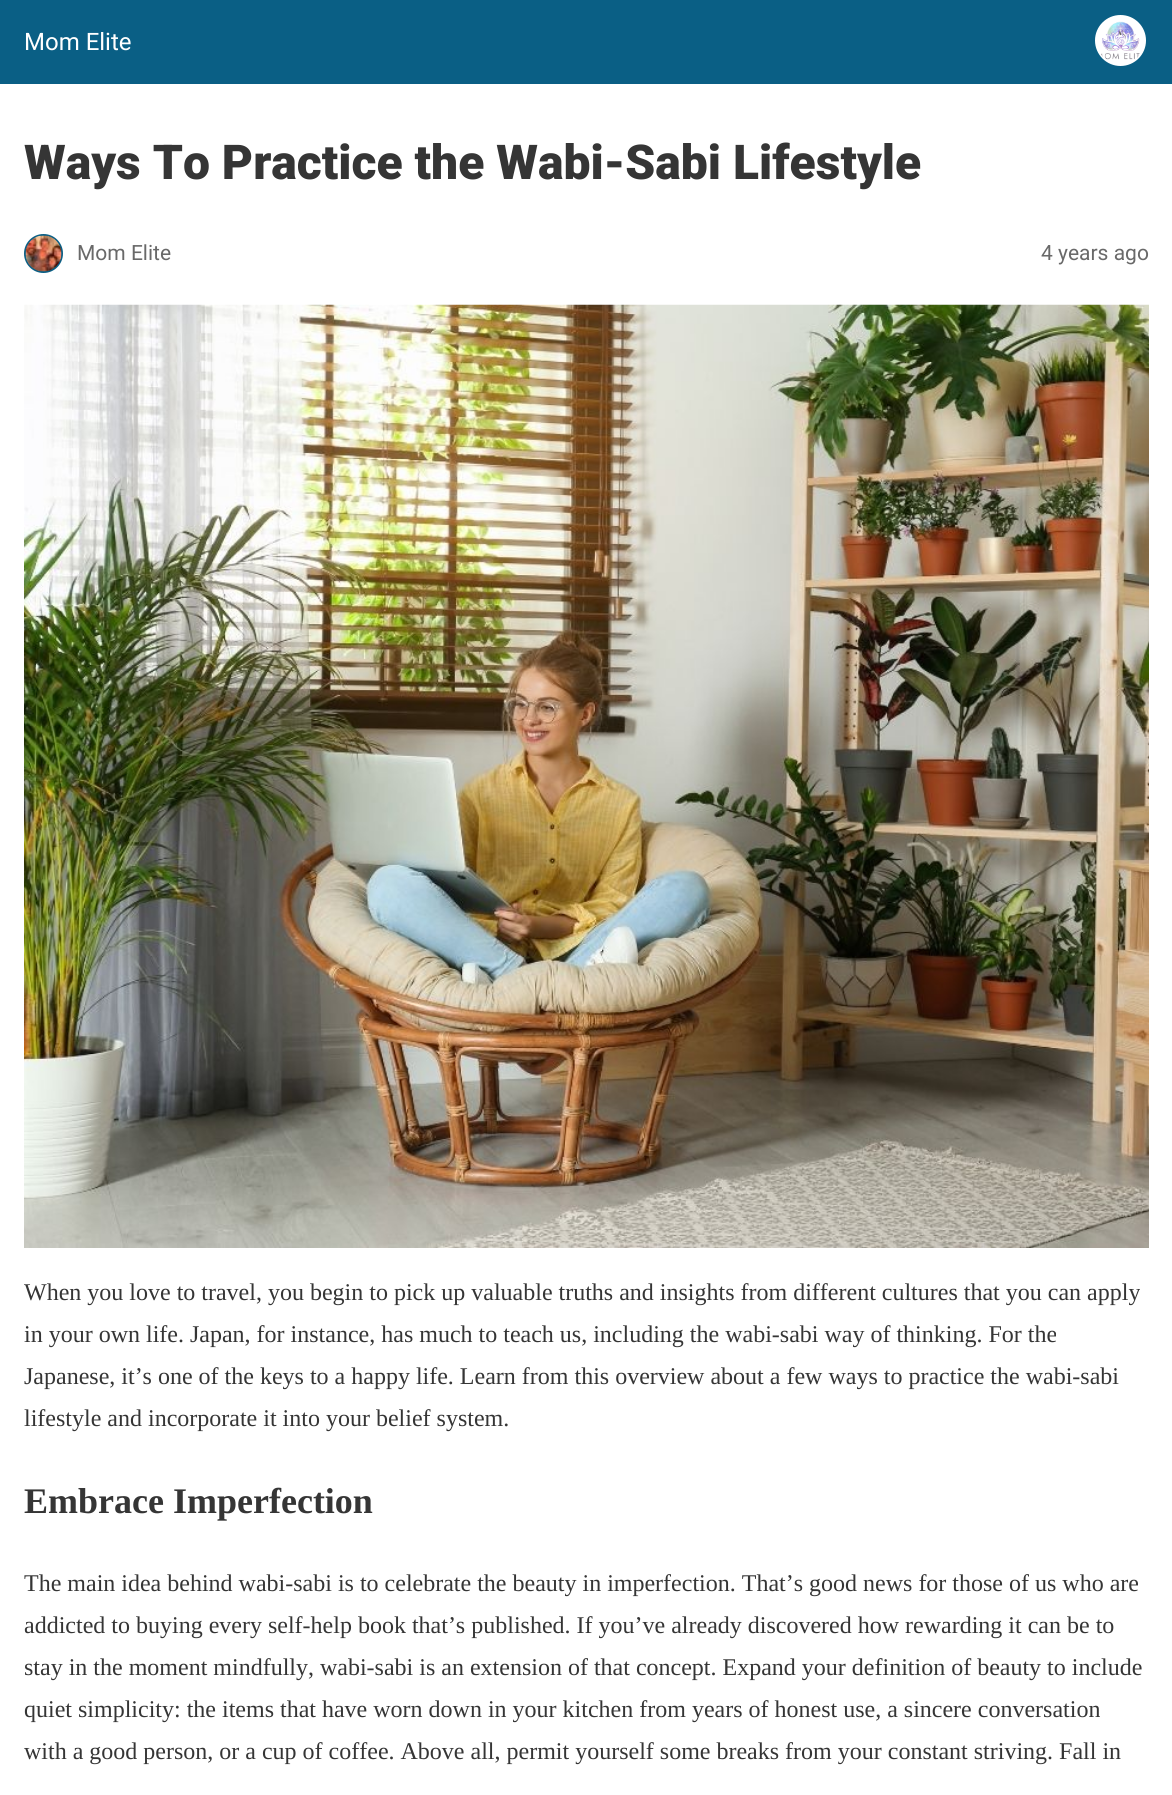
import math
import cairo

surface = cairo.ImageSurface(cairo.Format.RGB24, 1172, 1795)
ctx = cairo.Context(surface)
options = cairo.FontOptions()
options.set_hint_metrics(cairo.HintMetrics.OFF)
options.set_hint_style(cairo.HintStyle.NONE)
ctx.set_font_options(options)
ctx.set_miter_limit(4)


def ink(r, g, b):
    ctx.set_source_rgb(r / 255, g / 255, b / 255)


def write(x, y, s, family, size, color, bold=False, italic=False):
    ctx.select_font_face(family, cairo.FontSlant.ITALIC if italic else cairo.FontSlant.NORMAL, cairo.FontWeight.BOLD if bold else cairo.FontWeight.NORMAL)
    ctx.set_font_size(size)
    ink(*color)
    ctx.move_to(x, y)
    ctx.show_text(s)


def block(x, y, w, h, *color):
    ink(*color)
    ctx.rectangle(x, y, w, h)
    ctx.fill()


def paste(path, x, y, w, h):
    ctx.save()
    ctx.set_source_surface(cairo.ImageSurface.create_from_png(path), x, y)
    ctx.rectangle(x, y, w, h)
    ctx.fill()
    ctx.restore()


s1 = dict(family="Roboto", size=24, color=(255, 255, 255))
s2 = dict(family="Roboto Black", size=48, color=(53, 53, 53))
s3 = dict(family="Roboto", size=21, color=(105, 105, 105))
s4 = dict(family="Liberation Serif", size=24, color=(53, 53, 53))
s5 = dict(family="Liberation Serif", size=36, color=(53, 53, 53), bold=True)

ink(255, 255, 255)
ctx.paint()
block(0, 0, 1172, 84, 10, 95, 133)
write(24, 50, "Mom Elite", **s1)
ctx.new_path()
ctx.arc(1120.5, 40.5, 24.5, 0, 2 * math.pi)
ctx.fill_preserve()
ctx.stroke()
paste("pic1.png", 1101, 21, 39, 39)
write(24, 179, "Ways To Practice the Wabi-Sabi Lifestyle", **s2)
ctx.new_path()
ctx.arc(43.5, 253.5, 18.5, 0, 2 * math.pi)
ink(10, 95, 133)
ctx.stroke()
paste("pic2.png", 25, 235, 37, 37)
write(77, 260, "Mom Elite", **s3)
write(1041, 260, "4 years ago", **s3)
paste("pic3.png", 24, 304, 1125, 944)
write(24, 1300, "When you love to travel, you begin to pick up valuable truths and insights from different cultures that you can apply", **s4)
write(24, 1342, "in your own life. Japan, for instance, has much to teach us, including the wabi-sabi way of thinking. For the", **s4)
write(24, 1384, "Japanese, it’s one of the keys to a happy life. Learn from this overview about a few ways to practice the wabi-sabi", **s4)
write(24, 1426, "lifestyle and incorporate it into your belief system.", **s4)
write(24, 1513, "Embrace Imperfection", **s5)
write(24, 1591, "The main idea behind wabi-sabi is to celebrate the beauty in imperfection. That’s good news for those of us who are", **s4)
write(24, 1633, "addicted to buying every self-help book that’s published. If you’ve already discovered how rewarding it can be to", **s4)
write(24, 1675, "stay in the moment mindfully, wabi-sabi is an extension of that concept. Expand your definition of beauty to include", **s4)
write(24, 1717, "quiet simplicity: the items that have worn down in your kitchen from years of honest use, a sincere conversation", **s4)
write(24, 1759, "with a good person, or a cup of coffee. Above all, permit yourself some breaks from your constant striving. Fall in", **s4)
surface.write_to_png("screenshot.png")
